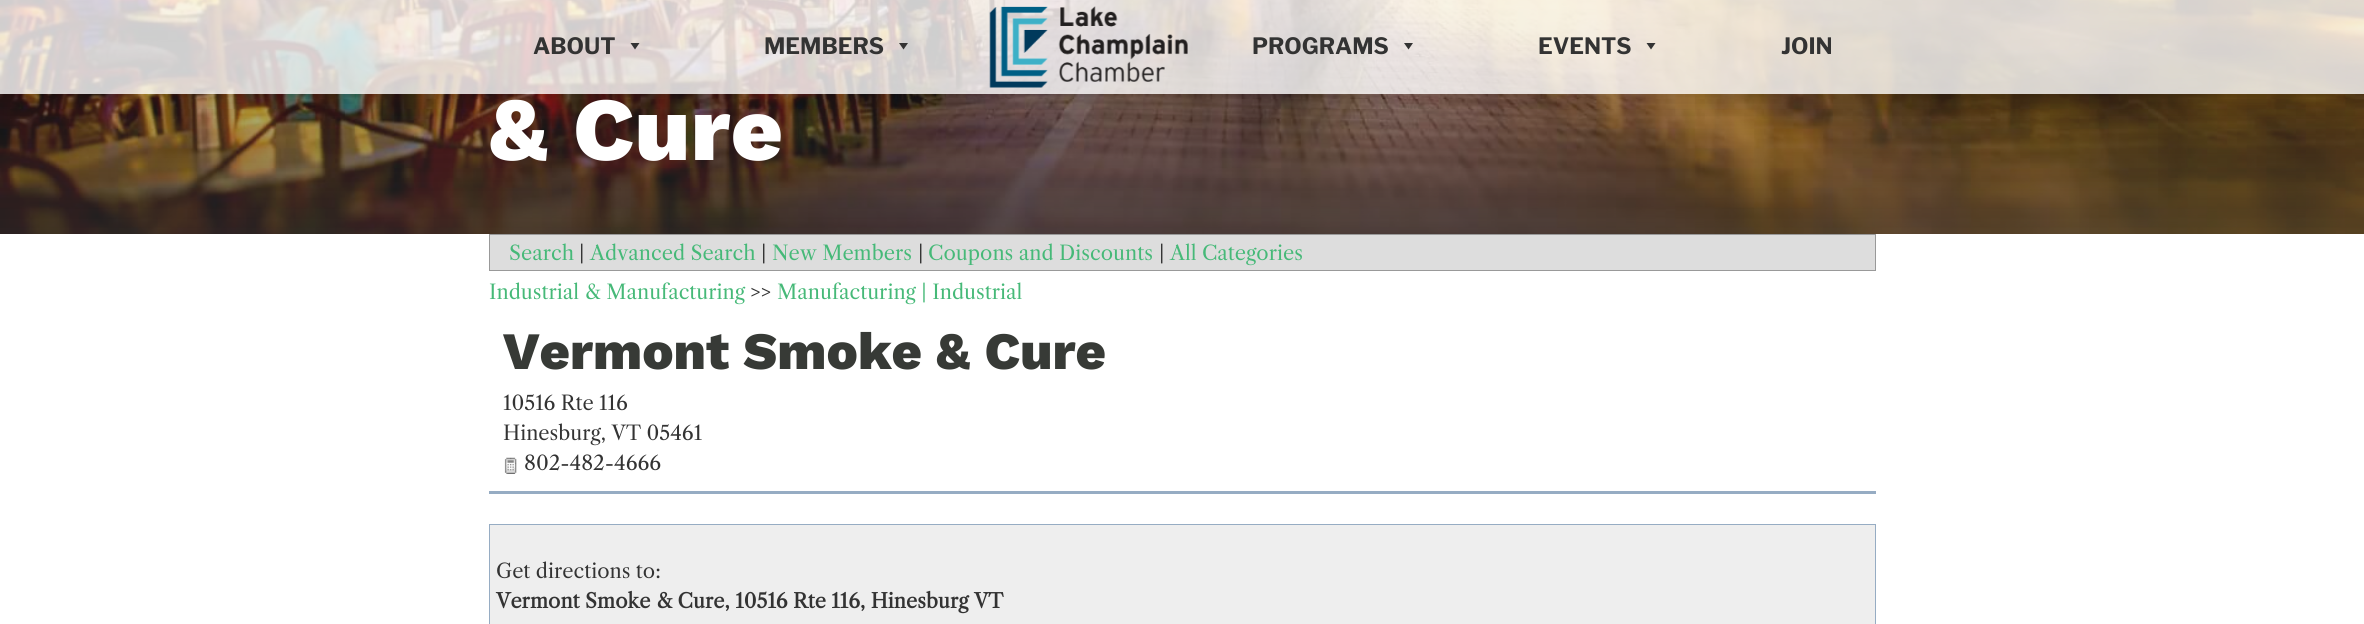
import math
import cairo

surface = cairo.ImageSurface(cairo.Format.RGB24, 2364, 624)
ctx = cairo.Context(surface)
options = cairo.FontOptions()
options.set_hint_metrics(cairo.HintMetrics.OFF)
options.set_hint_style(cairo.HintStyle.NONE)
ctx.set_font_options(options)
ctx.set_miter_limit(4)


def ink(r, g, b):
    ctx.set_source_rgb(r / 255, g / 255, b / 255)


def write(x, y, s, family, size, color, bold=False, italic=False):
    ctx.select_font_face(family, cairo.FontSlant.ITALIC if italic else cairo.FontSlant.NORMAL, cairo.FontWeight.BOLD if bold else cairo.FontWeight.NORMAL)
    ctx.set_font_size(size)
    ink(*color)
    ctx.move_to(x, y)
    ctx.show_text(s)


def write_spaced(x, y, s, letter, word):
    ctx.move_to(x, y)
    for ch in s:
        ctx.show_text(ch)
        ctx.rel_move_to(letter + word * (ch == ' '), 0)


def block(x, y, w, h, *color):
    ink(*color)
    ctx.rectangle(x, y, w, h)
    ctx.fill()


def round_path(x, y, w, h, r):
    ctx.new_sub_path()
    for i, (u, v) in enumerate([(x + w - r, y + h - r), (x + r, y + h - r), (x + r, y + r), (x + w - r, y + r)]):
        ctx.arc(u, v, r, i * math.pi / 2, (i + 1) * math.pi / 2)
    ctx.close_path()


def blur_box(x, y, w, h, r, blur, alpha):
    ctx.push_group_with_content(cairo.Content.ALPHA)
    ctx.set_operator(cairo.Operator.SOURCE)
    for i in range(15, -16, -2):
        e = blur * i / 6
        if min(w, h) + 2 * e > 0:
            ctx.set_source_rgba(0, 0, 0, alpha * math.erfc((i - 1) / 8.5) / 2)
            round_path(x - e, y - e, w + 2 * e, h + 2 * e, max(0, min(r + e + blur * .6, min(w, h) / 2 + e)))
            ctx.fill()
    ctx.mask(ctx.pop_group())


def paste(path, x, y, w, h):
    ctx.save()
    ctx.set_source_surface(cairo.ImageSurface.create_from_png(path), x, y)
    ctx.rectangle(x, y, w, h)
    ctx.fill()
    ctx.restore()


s1 = dict(family="Libre Franklin", size=22.5, color=(51, 51, 51), bold=True)
s2 = dict(family="Libre Caslon Text", size=20, color=(70, 185, 120))
s3 = dict(family="Libre Caslon Text", size=20, color=(51, 51, 51))
s4 = dict(family="Work Sans ExtraBold", size=52.5, color=(55, 58, 54))
s5 = dict(family="Libre Caslon Text", size=20, color=(51, 51, 51), bold=True)

ink(255, 255, 255)
ctx.paint()
paste("pic2.png", 0, 0, 2364, 234)
ctx.save()
ctx.set_fill_rule(cairo.FillRule.EVEN_ODD)
ctx.new_path()
ctx.move_to(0, 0)
ctx.line_to(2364, 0)
ctx.line_to(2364, 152)
ctx.line_to(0, 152)
ctx.close_path()
ctx.move_to(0, 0)
ctx.line_to(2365, 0)
ctx.line_to(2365, 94)
ctx.line_to(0, 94)
ctx.close_path()
ctx.clip()
ink(0, 0, 0)
blur_box(0, 0, 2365, 94, 0, 19, 0.2)
ctx.restore()
ctx.set_source_rgba(1, 1, 1, 0.8)
ctx.rectangle(0, 0, 2364, 94)
ctx.fill()
write(533, 54, "ABOUT", **s1)
ctx.new_path()
ctx.move_to(639.5, 43)
ctx.line_to(635, 49.5)
ctx.line_to(630.5, 43)
ctx.close_path()
ctx.fill()
write(764, 54, "MEMBERS", **s1)
ctx.new_path()
ctx.move_to(908, 43)
ctx.line_to(903.5, 49.5)
ctx.line_to(899, 43)
ctx.close_path()
ctx.fill()
paste("pic1.png", 989, 6, 199, 82)
write(1252, 54, "PROGRAMS", **s1)
ctx.new_path()
ctx.move_to(1413, 43)
ctx.line_to(1408.5, 49.5)
ctx.line_to(1404, 43)
ctx.close_path()
ctx.fill()
write(1538, 54, "EVENTS", **s1)
ctx.new_path()
ctx.move_to(1655.5, 43)
ctx.line_to(1651, 49.5)
ctx.line_to(1646.5, 43)
ctx.close_path()
ctx.fill()
write(1781, 54, "JOIN", **s1)
ctx.select_font_face("Work Sans ExtraBold")
ctx.set_font_size(90)
ink(255, 255, 255)
write_spaced(489, 160, "& Cure", 0.5, 0)
ink(221, 221, 221)
ctx.rectangle(489.5, 234.5, 1386, 36)
ctx.fill_preserve()
ink(153, 153, 153)
ctx.set_line_width(1)
ctx.stroke()
write(509, 260, "Search", **s2)
write(579, 260, "|", **s3)
write(590, 260, "Advanced Search", **s2)
write(761, 260, "|", **s3)
write(772, 260, "New Members", **s2)
write(918, 260, "|", **s3)
write(928, 260, "Coupons and Discounts", **s2)
write(1159, 260, "|", **s3)
write(1170, 260, "All Categories", **s2)
write(489, 299, "Industrial & Manufacturing", **s2)
write(750, 299, ">>", **s3)
write(777, 299, "Manufacturing | Industrial", **s2)
write(503, 369, "Vermont Smoke & Cure", **s4)
write(503, 410, "10516 Rte 116", **s3)
write(503, 440, "Hinesburg, VT 05461", **s3)
paste("pic3.png", 504, 457, 13, 17)
write(524, 470, "802-482-4666", **s3)
block(489, 491, 1387, 3, 150, 172, 195)
ink(238, 238, 238)
ctx.rectangle(489.5, 524.5, 1386, 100)
ctx.fill_preserve()
ink(150, 172, 195)
ctx.stroke()
write(496, 578, "Get directions to:", **s3)
write(496, 608, "Vermont Smoke & Cure, 10516 Rte 116, Hinesburg VT", **s5)
surface.write_to_png("screenshot.png")
